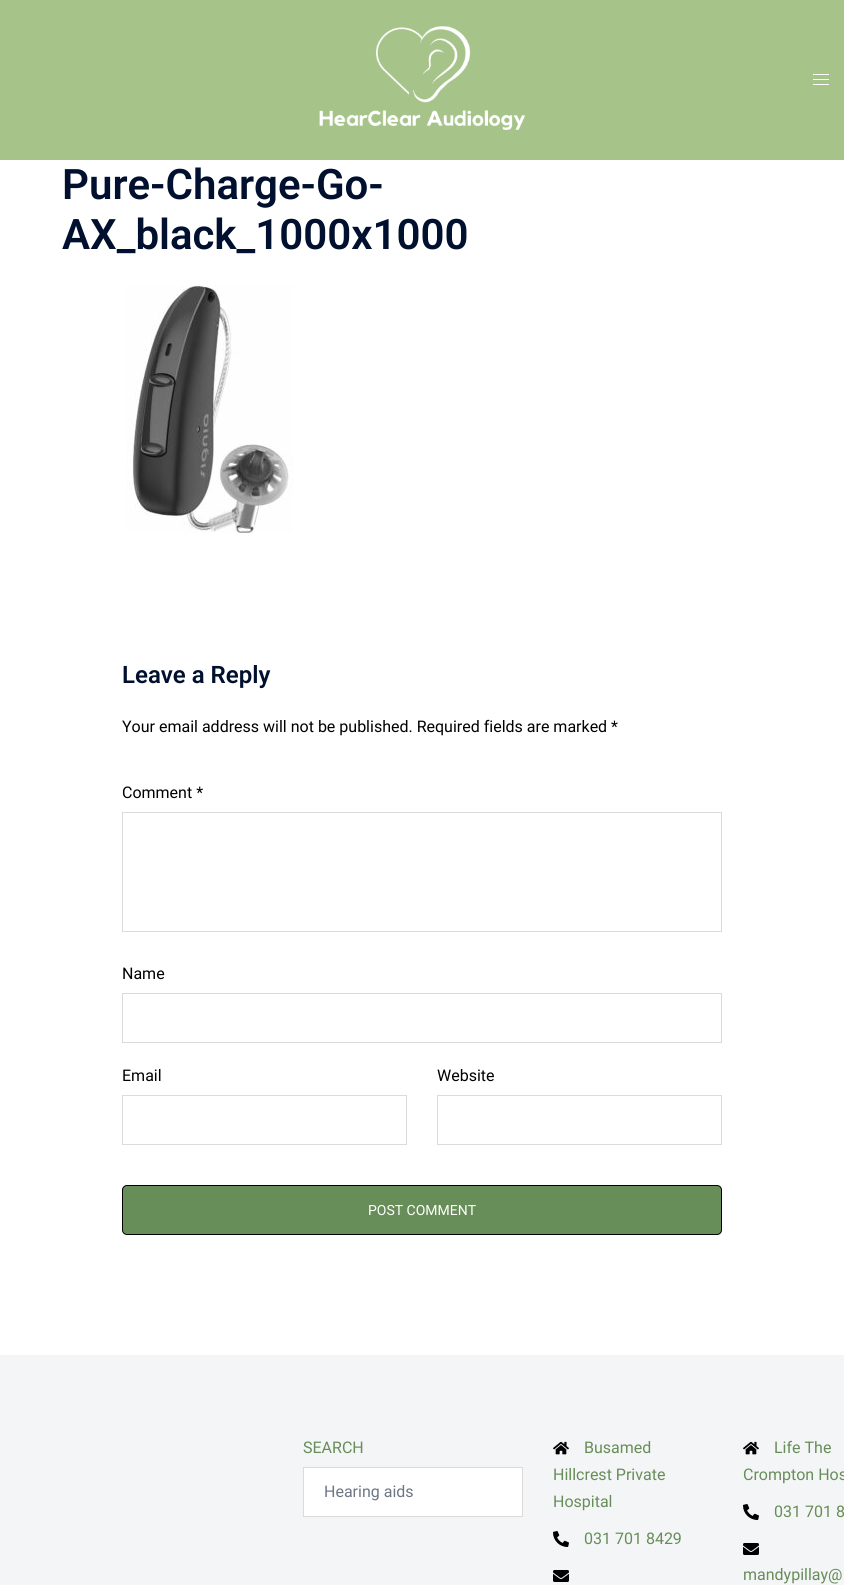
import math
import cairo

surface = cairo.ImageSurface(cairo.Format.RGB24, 844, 1585)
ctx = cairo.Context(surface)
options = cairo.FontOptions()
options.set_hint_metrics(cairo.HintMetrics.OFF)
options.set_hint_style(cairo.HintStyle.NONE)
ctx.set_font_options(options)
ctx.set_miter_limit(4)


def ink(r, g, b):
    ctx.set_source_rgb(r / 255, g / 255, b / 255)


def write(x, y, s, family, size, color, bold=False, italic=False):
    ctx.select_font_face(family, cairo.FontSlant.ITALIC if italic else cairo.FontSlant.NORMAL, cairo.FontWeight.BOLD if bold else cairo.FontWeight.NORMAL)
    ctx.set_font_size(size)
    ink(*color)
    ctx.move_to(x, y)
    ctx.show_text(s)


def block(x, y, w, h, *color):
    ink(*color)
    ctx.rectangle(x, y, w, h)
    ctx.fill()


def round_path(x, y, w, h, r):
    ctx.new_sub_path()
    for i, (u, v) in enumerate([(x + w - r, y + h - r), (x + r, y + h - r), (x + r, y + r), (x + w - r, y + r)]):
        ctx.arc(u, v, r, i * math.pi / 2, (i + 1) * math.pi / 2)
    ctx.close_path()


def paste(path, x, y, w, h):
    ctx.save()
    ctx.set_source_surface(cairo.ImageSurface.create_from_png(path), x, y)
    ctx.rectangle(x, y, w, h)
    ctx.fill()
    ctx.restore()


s1 = dict(family="Roboto SemiBold", size=42, color=(0, 16, 46))
s2 = dict(family="Roboto SemiBold", size=24, color=(0, 16, 46))
s3 = dict(family="Roboto", size=16, color=(0, 0, 0))
s4 = dict(family="Roboto", size=14, color=(255, 255, 255))
s5 = dict(family="Roboto", size=16, color=(103, 141, 88))
s6 = dict(family="Roboto", size=16, color=(109, 118, 133))

ink(255, 255, 255)
ctx.paint()
block(0, 0, 844, 160, 166, 196, 138)
paste("pic1.png", 319, 26, 206, 104)
block(813, 74, 16, 1, 255, 255, 255)
block(813, 79, 16, 1, 255, 255, 255)
block(813, 84, 16, 1, 255, 255, 255)
write(62, 199, "Pure-Charge-Go-", **s1)
write(62, 249, "AX_black_1000x1000", **s1)
paste("pic2.png", 126, 285, 167, 248)
write(122, 683, "Leave a Reply", **s2)
write(122, 732, "Your email address will not be published. Required fields are marked *", **s3)
write(122, 798, "Comment *", **s3)
ctx.rectangle(122.5, 812.5, 599, 119)
ink(219, 219, 219)
ctx.set_line_width(1)
ctx.stroke()
write(122, 979, "Name", **s3)
ctx.rectangle(122.5, 993.5, 599, 49)
ink(219, 219, 219)
ctx.stroke()
write(122, 1081, "Email", **s3)
ctx.rectangle(122.5, 1095.5, 284, 49)
ink(219, 219, 219)
ctx.stroke()
write(437, 1081, "Website", **s3)
ctx.rectangle(437.5, 1095.5, 284, 49)
ink(219, 219, 219)
ctx.stroke()
ink(103, 141, 88)
round_path(122.5, 1185.5, 599, 49, 4.5)
ctx.fill_preserve()
ink(0, 0, 0)
ctx.stroke()
write(368, 1215, "POST COMMENT", **s4)
block(0, 1355, 844, 230, 244, 245, 247)
write(303, 1453, "SEARCH", **s5)
ink(255, 255, 255)
ctx.rectangle(303.5, 1467.5, 219, 49)
ctx.fill_preserve()
ink(219, 219, 219)
ctx.stroke()
write(324, 1497, "Hearing aids", **s6)
paste("pic3.png", 553, 1441, 16, 14)
write(584, 1453, "Busamed", **s5)
write(553, 1480, "Hillcrest Private", **s5)
write(553, 1507, "Hospital", **s5)
paste("pic4.png", 553, 1531, 16, 16)
write(584, 1544, "031 701 8429", **s5)
paste("pic5.png", 553, 1570, 16, 12)
paste("pic3.png", 743, 1441, 16, 14)
write(774, 1453, "Life The", **s5)
write(743, 1480, "Crompton Hos", **s5)
paste("pic4.png", 743, 1504, 16, 16)
write(774, 1517, "031 701 8", **s5)
paste("pic5.png", 743, 1543, 16, 12)
write(743, 1580, "mandypillay@", **s5)
surface.write_to_png("screenshot.png")
